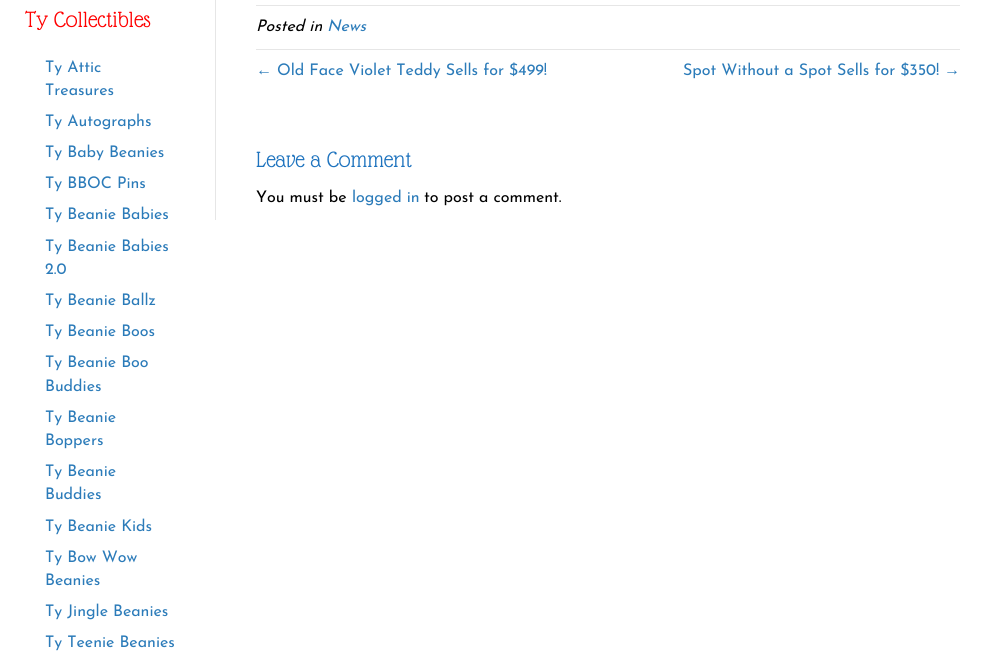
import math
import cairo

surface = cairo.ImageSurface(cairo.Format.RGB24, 1000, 656)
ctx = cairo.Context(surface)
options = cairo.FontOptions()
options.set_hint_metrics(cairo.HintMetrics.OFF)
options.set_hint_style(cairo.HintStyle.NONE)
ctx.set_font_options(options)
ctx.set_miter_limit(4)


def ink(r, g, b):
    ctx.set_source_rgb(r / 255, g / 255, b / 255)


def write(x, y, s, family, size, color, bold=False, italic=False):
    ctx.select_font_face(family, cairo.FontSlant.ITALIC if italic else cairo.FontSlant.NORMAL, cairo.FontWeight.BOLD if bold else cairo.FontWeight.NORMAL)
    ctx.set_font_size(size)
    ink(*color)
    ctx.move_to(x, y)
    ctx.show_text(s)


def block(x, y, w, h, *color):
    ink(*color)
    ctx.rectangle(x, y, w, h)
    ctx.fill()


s1 = dict(family="Glass Antiqua", size=24, color=(255, 0, 0))
s2 = dict(family="Josefin Sans", size=16, color=(43, 123, 185))
s3 = dict(family="Josefin Sans", size=16, color=(0, 0, 0), italic=True)
s4 = dict(family="Josefin Sans", size=16, color=(43, 123, 185), italic=True)
s5 = dict(family="Liberation Sans", size=16, color=(43, 123, 185))
s6 = dict(family="Glass Antiqua", size=24, color=(30, 115, 190))
s7 = dict(family="Josefin Sans", size=16, color=(0, 0, 0))

ink(255, 255, 255)
ctx.paint()
write(25, 27, "Ty Collectibles", **s1)
write(45, 72, "Ty Attic", **s2)
write(45, 95, "Treasures", **s2)
write(45, 126, "Ty Autographs", **s2)
write(45, 157, "Ty Baby Beanies", **s2)
write(45, 188, "Ty BBOC Pins", **s2)
write(45, 219, "Ty Beanie Babies", **s2)
write(45, 251, "Ty Beanie Babies", **s2)
write(45, 274, "2.0", **s2)
write(45, 305, "Ty Beanie Ballz", **s2)
write(45, 336, "Ty Beanie Boos", **s2)
write(45, 367, "Ty Beanie Boo", **s2)
write(45, 391, "Buddies", **s2)
write(45, 422, "Ty Beanie", **s2)
write(45, 445, "Boppers", **s2)
write(45, 476, "Ty Beanie", **s2)
write(45, 499, "Buddies", **s2)
write(45, 531, "Ty Beanie Kids", **s2)
write(45, 562, "Ty Bow Wow", **s2)
write(45, 585, "Beanies", **s2)
write(45, 616, "Ty Jingle Beanies", **s2)
write(45, 647, "Ty Teenie Beanies", **s2)
block(215, 0, 1, 220, 230, 230, 230)
block(256, 5, 704, 1, 230, 230, 230)
write(256, 31, "Posted in", **s3)
write(327, 31, "News", **s4)
block(256, 49, 704, 1, 230, 230, 230)
write(256, 75, "←", **s5)
write(277, 75, "Old Face Violet Teddy Sells for $499!", **s2)
write(683, 75, "Spot Without a Spot Sells for $350!", **s2)
write(944, 75, "→", **s5)
write(256, 167, "Leave a Comment", **s6)
write(256, 202, "You must be", **s7)
write(352, 202, "logged in", **s2)
write(424, 202, "to post a comment.", **s7)
surface.write_to_png("screenshot.png")
